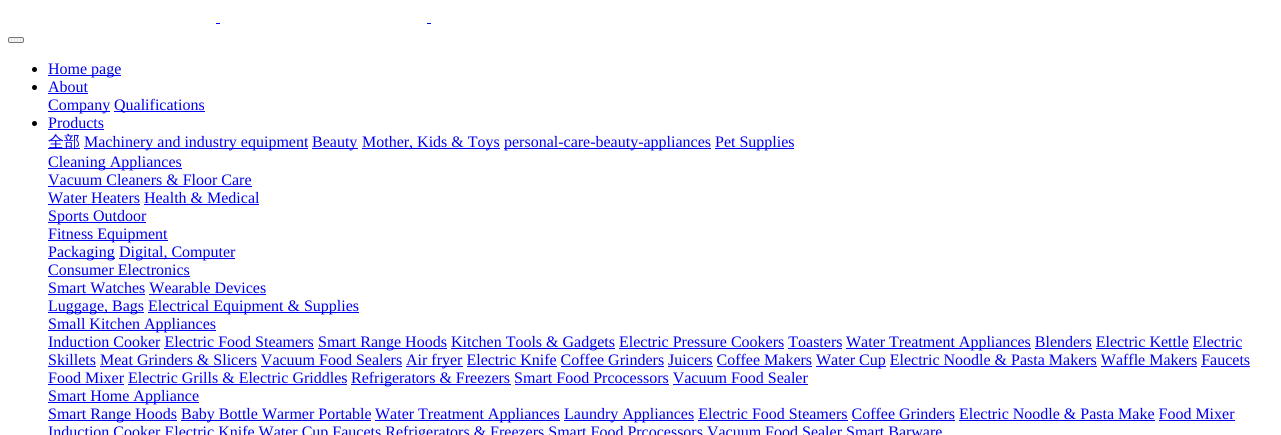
import math
import cairo

surface = cairo.ImageSurface(cairo.Format.RGB24, 1281, 435)
ctx = cairo.Context(surface)
options = cairo.FontOptions()
options.set_hint_metrics(cairo.HintMetrics.OFF)
options.set_hint_style(cairo.HintStyle.NONE)
ctx.set_font_options(options)
ctx.set_miter_limit(4)


def ink(r, g, b):
    ctx.set_source_rgb(r / 255, g / 255, b / 255)


def write(x, y, s, family, size, color, bold=False, italic=False):
    ctx.select_font_face(family, cairo.FontSlant.ITALIC if italic else cairo.FontSlant.NORMAL, cairo.FontWeight.BOLD if bold else cairo.FontWeight.NORMAL)
    ctx.set_font_size(size)
    ink(*color)
    ctx.move_to(x, y)
    ctx.show_text(s)


def block(x, y, w, h, *color):
    ink(*color)
    ctx.rectangle(x, y, w, h)
    ctx.fill()


def round_path(x, y, w, h, r):
    ctx.new_sub_path()
    for i, (u, v) in enumerate([(x + w - r, y + h - r), (x + r, y + h - r), (x + r, y + r), (x + w - r, y + r)]):
        ctx.arc(u, v, r, i * math.pi / 2, (i + 1) * math.pi / 2)
    ctx.close_path()


s1 = dict(family="Liberation Serif", size=16, color=(0, 0, 238))
s2 = dict(family="WenQuanYi Zen Hei Medium", size=16, color=(0, 0, 238))

ink(255, 255, 255)
ctx.paint()
block(216, 23, 4, 1, 0, 0, 238)
block(427, 23, 4, 1, 0, 0, 238)
ink(239, 239, 239)
round_path(8.5, 37.5, 15, 5, 1.5)
ctx.fill_preserve()
ink(118, 118, 118)
ctx.set_line_width(1)
ctx.stroke()
ink(0, 0, 0)
ctx.arc(34.5, 69.5, 2.5, 0, 2 * math.pi)
ctx.fill()
block(48, 75, 73, 1, 0, 0, 238)
write(48, 74, "Home page", **s1)
ink(0, 0, 0)
ctx.new_path()
ctx.arc(34.5, 87.5, 2.5, 0, 2 * math.pi)
ctx.fill()
write(48, 92, "About", **s1)
block(48, 93, 40, 1, 0, 0, 238)
block(48, 111, 62, 1, 0, 0, 238)
write(48, 110, "Company", **s1)
block(114, 111, 91, 1, 0, 0, 238)
write(114, 110, "Qualifications", **s1)
ink(0, 0, 0)
ctx.new_path()
ctx.arc(34.5, 123.5, 2.5, 0, 2 * math.pi)
ctx.fill()
write(48, 128, "Products", **s1)
block(48, 129, 56, 1, 0, 0, 238)
block(48, 148, 32, 1, 0, 0, 238)
write(48, 147, "全部", **s2)
block(84, 148, 224, 1, 0, 0, 238)
write(84, 147, "Machinery and industry equipment", **s1)
block(312, 148, 46, 1, 0, 0, 238)
write(312, 147, "Beauty", **s1)
block(362, 148, 138, 1, 0, 0, 238)
write(362, 147, "Mother, Kids & Toys", **s1)
block(504, 148, 207, 1, 0, 0, 238)
write(504, 147, "personal-care-beauty-appliances", **s1)
block(715, 148, 79, 1, 0, 0, 238)
write(715, 147, "Pet Supplies", **s1)
block(48, 168, 134, 1, 0, 0, 238)
write(48, 167, "Cleaning Appliances", **s1)
write(48, 185, "Vacuum Cleaners & Floor Care", **s1)
block(48, 186, 204, 1, 0, 0, 238)
write(48, 203, "Water Heaters Health & Medical", **s1)
block(48, 204, 92, 1, 0, 0, 238)
block(144, 204, 115, 1, 0, 0, 238)
block(48, 222, 98, 1, 0, 0, 238)
write(48, 221, "Sports Outdoor", **s1)
block(48, 240, 120, 1, 0, 0, 238)
write(48, 239, "Fitness Equipment", **s1)
block(48, 258, 67, 1, 0, 0, 238)
write(48, 257, "Packaging", **s1)
block(119, 258, 116, 1, 0, 0, 238)
write(119, 257, "Digital, Computer", **s1)
write(48, 275, "Consumer Electronics", **s1)
block(48, 276, 142, 1, 0, 0, 238)
write(48, 293, "Smart Watches Wearable Devices", **s1)
block(48, 294, 97, 1, 0, 0, 238)
block(149, 294, 117, 1, 0, 0, 238)
block(48, 312, 96, 1, 0, 0, 238)
write(48, 311, "Luggage, Bags", **s1)
block(148, 312, 211, 1, 0, 0, 238)
write(148, 311, "Electrical Equipment & Supplies", **s1)
block(48, 330, 168, 1, 0, 0, 238)
write(48, 329, "Small Kitchen Appliances", **s1)
write(48, 347, "Induction Cooker Electric Food Steamers", **s1)
block(48, 348, 112, 1, 0, 0, 238)
block(318, 348, 129, 1, 0, 0, 238)
write(318, 347, "Smart Range Hoods", **s1)
block(451, 348, 164, 1, 0, 0, 238)
write(451, 347, "Kitchen Tools & Gadgets Electric Pressure Cookers Toasters", **s1)
block(846, 348, 185, 1, 0, 0, 238)
write(846, 347, "Water Treatment Appliances Blenders Electric Kettle Electric", **s1)
block(164, 348, 150, 1, 0, 0, 238)
block(619, 348, 165, 1, 0, 0, 238)
block(788, 348, 54, 1, 0, 0, 238)
block(1035, 348, 57, 1, 0, 0, 238)
block(1096, 348, 93, 1, 0, 0, 238)
write(48, 365, "Skillets Meat Grinders & Slicers Vacuum Food Sealers", **s1)
block(1193, 348, 49, 1, 0, 0, 238)
block(48, 366, 48, 1, 0, 0, 238)
block(406, 366, 57, 1, 0, 0, 238)
write(406, 365, "Air fryer Electric Knife Coffee Grinders Juicers Coffee Makers", **s1)
block(816, 366, 70, 1, 0, 0, 238)
write(816, 365, "Water Cup Electric Noodle & Pasta Makers Waffle Makers Faucets", **s1)
block(100, 366, 157, 1, 0, 0, 238)
block(261, 366, 141, 1, 0, 0, 238)
block(467, 366, 90, 1, 0, 0, 238)
block(561, 366, 103, 1, 0, 0, 238)
block(668, 366, 45, 1, 0, 0, 238)
block(717, 366, 95, 1, 0, 0, 238)
block(890, 366, 207, 1, 0, 0, 238)
block(1101, 366, 96, 1, 0, 0, 238)
block(1201, 366, 49, 1, 0, 0, 238)
write(48, 383, "Food Mixer Electric Grills & Electric Griddles", **s1)
block(48, 384, 76, 1, 0, 0, 238)
block(351, 384, 160, 1, 0, 0, 238)
write(351, 383, "Refrigerators & Freezers Smart Food Prcocessors Vacuum Food Sealer", **s1)
block(128, 384, 219, 1, 0, 0, 238)
block(515, 384, 154, 1, 0, 0, 238)
block(673, 384, 135, 1, 0, 0, 238)
block(48, 402, 151, 1, 0, 0, 238)
write(48, 401, "Smart Home Appliance", **s1)
block(48, 420, 129, 1, 0, 0, 238)
write(48, 419, "Smart Range Hoods", **s1)
block(181, 420, 190, 1, 0, 0, 238)
write(181, 419, "Baby Bottle Warmer Portable", **s1)
block(375, 420, 185, 1, 0, 0, 238)
write(375, 419, "Water Treatment Appliances", **s1)
block(564, 420, 130, 1, 0, 0, 238)
write(564, 419, "Laundry Appliances Electric Food Steamers Coffee Grinders Electric Noodle & Pasta Make Food Mixer", **s1)
block(698, 420, 150, 1, 0, 0, 238)
block(852, 420, 103, 1, 0, 0, 238)
block(959, 420, 196, 1, 0, 0, 238)
block(1159, 420, 76, 1, 0, 0, 238)
write(48, 437, "Induction Cooker Electric Knife Water Cup Faucets Refrigerators & Freezers Smart Food Prcocessors Vacuum Food Sealer Smart Barware", **s1)
surface.write_to_png("screenshot.png")
